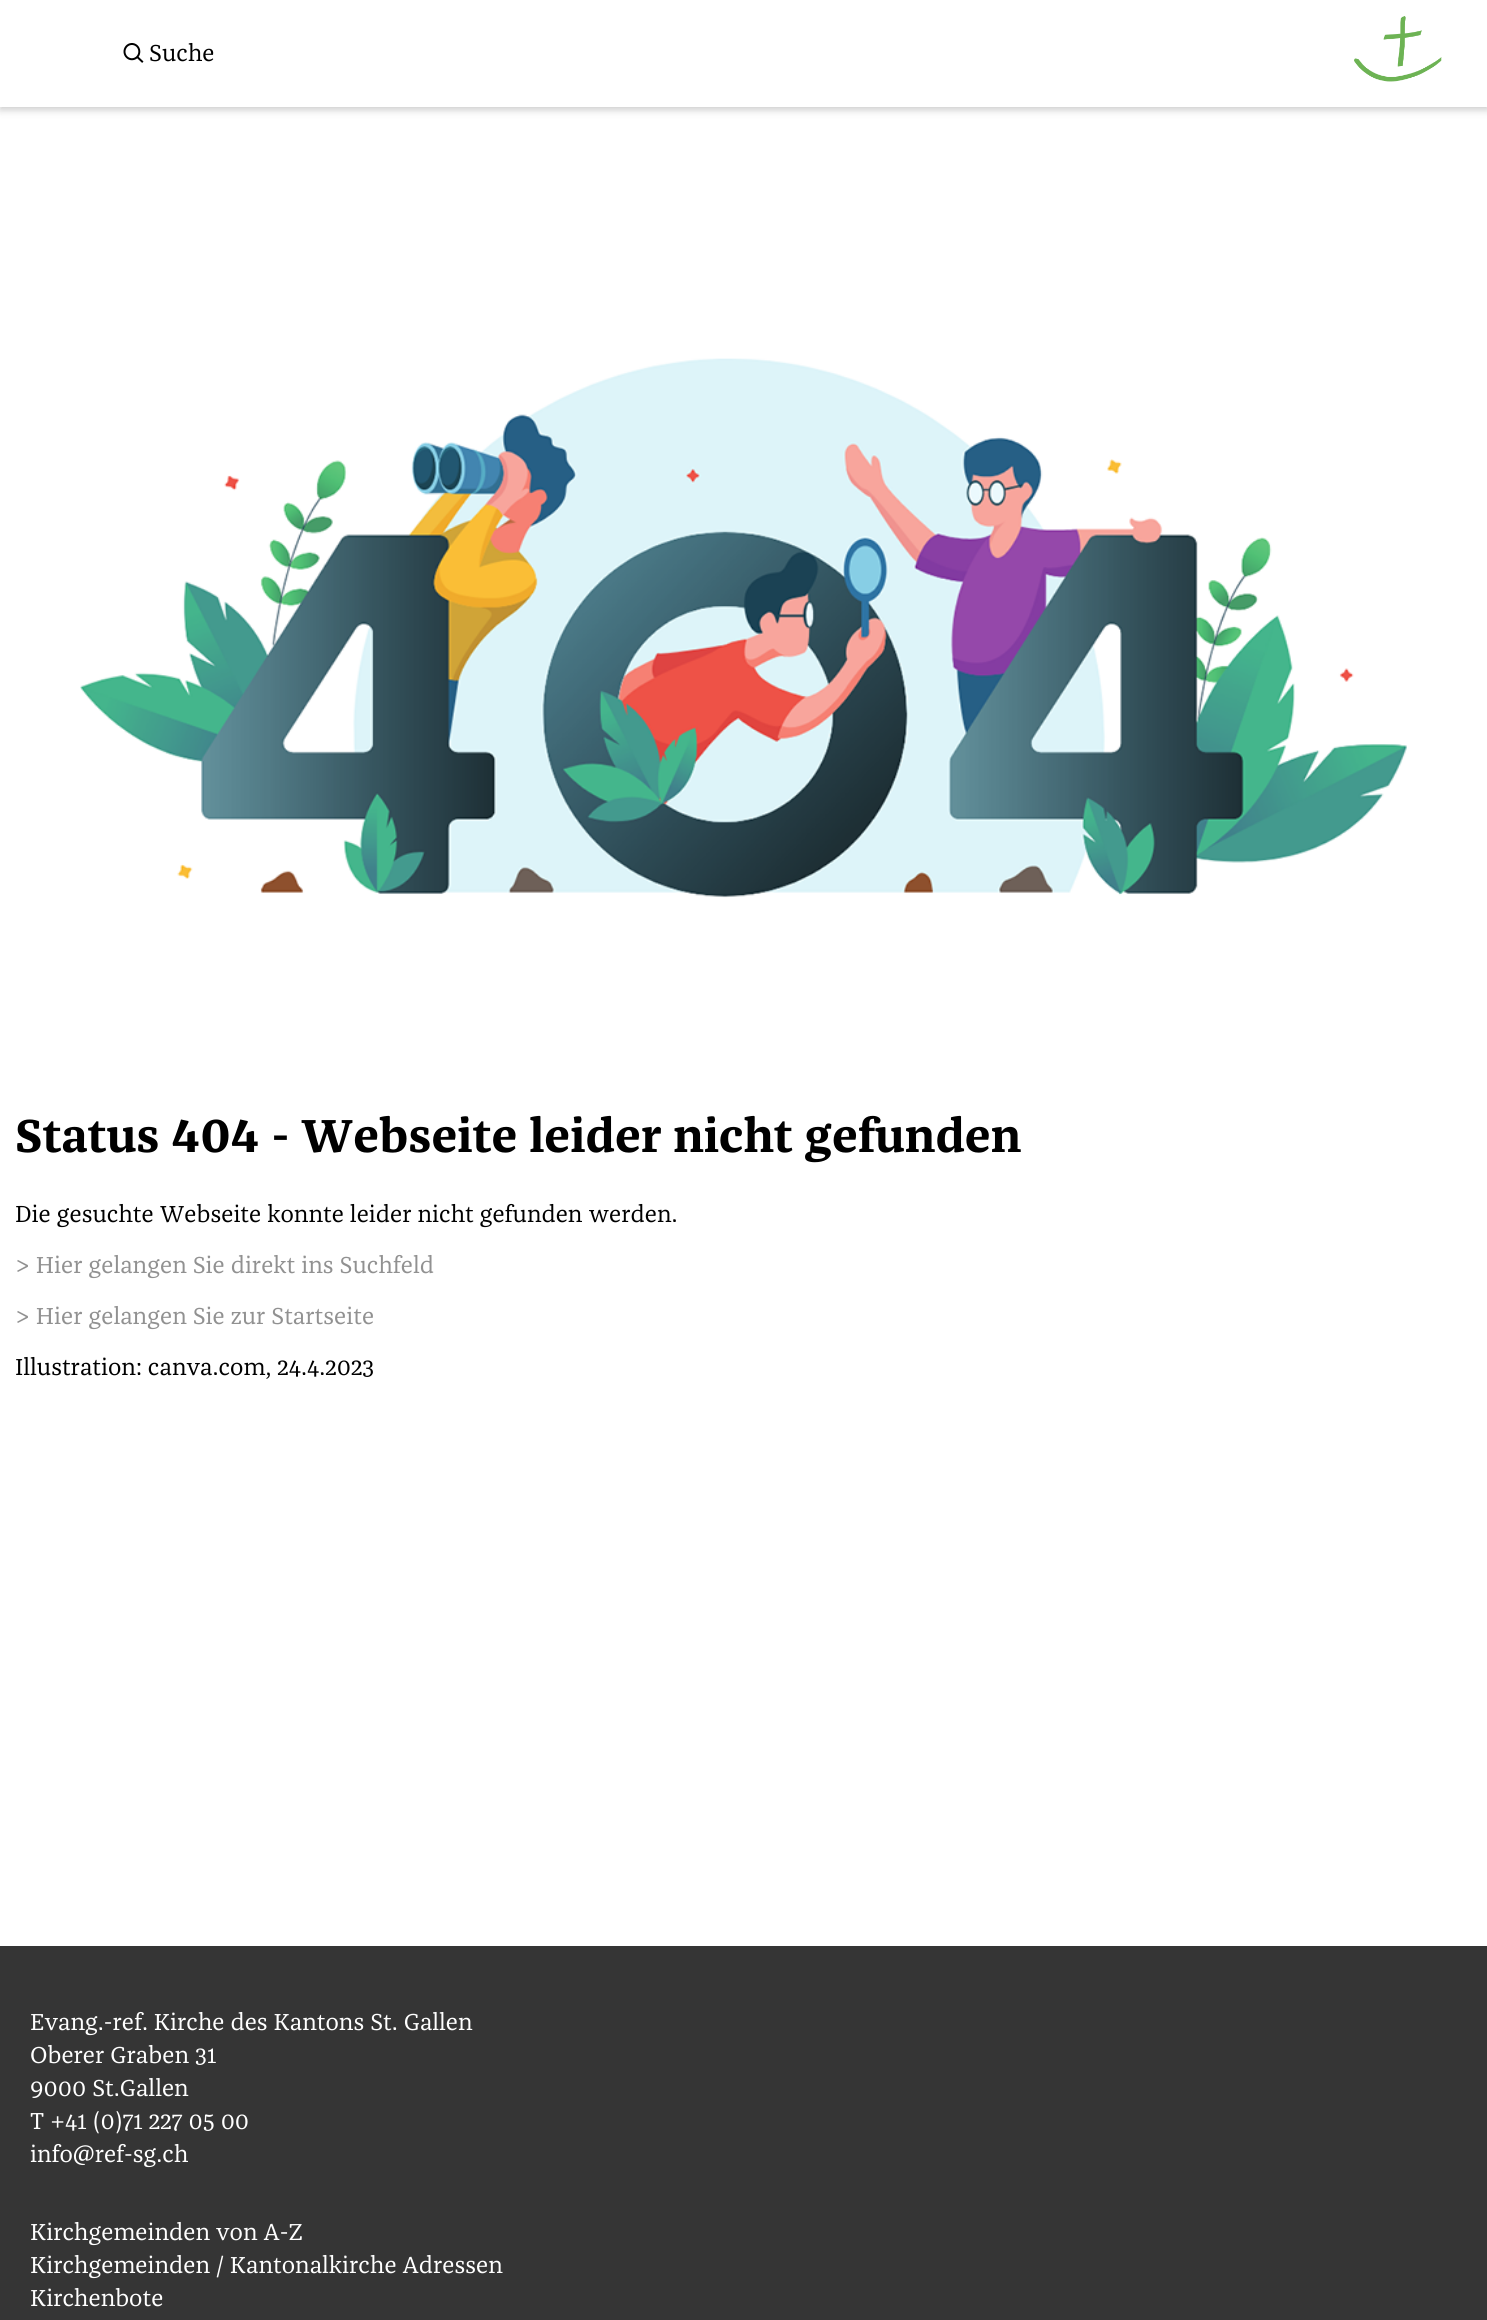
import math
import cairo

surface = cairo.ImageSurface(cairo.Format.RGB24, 1487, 2320)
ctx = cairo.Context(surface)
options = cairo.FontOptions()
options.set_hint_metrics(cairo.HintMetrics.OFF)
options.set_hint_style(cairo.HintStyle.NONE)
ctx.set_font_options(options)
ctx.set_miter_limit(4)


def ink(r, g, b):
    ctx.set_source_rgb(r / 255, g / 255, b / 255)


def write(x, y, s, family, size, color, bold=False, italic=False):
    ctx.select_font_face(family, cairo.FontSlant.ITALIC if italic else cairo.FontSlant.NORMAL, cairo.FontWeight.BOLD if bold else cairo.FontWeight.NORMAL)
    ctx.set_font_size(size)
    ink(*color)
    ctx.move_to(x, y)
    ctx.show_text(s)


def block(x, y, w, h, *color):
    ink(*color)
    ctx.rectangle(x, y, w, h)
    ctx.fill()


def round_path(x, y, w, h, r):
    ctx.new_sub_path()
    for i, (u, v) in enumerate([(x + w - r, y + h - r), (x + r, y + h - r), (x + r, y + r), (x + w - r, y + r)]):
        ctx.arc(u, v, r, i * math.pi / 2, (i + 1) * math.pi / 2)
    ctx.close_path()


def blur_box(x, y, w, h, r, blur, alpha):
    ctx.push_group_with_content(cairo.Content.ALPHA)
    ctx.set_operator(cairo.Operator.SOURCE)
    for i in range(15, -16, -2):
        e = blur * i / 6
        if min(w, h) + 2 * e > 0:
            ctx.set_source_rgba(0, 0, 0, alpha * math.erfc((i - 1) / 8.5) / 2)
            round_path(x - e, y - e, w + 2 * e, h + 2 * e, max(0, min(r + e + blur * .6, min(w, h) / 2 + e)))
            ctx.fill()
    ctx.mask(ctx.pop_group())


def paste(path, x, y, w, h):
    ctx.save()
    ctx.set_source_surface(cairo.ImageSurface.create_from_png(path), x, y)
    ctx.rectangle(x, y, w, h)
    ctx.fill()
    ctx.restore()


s1 = dict(family="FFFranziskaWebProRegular", size=24, color=(0, 0, 0))
s2 = dict(family="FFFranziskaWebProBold", size=48, color=(0, 0, 0))
s3 = dict(family="FFFranziskaWebProRegular", size=24, color=(145, 145, 145))
s4 = dict(family="FFFranziskaWebProRegular", size=24, color=(255, 255, 255))

ink(255, 255, 255)
ctx.paint()
ink(0, 0, 0)
blur_box(0, 3, 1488, 107, 0, 4, 0.2)
block(0, 0, 1487, 107, 255, 255, 255)
paste("pic1.png", 123, 43, 21, 20)
write(149, 61, "Suche", **s1)
paste("pic2.png", 1354, 16, 88, 66)
paste("pic3.png", 80, 358, 1327, 540)
write(15, 1152, "Status 404 - Webseite leider nicht gefunden", **s2)
write(15, 1222, "Die gesuchte Webseite konnte leider nicht gefunden werden.", **s1)
write(15, 1273, "> Hier gelangen Sie direkt ins Suchfeld", **s3)
write(15, 1324, "> Hier gelangen Sie zur Startseite", **s3)
write(15, 1375, "Illustration: canva.com, 24.4.2023", **s1)
block(0, 1946, 1487, 374, 53, 53, 53)
write(30, 2030, "Evang.-ref. Kirche des Kantons St. Gallen", **s4)
write(30, 2063, "Oberer Graben 31", **s4)
write(30, 2096, "9000 St.Gallen", **s4)
write(30, 2129, "T +41 (0)71 227 05 00", **s4)
write(30, 2162, "info@ref-sg.ch", **s4)
write(30, 2240, "Kirchgemeinden von A-Z", **s4)
write(30, 2273, "Kirchgemeinden / Kantonalkirche Adressen", **s4)
write(30, 2306, "Kirchenbote", **s4)
surface.write_to_png("screenshot.png")
